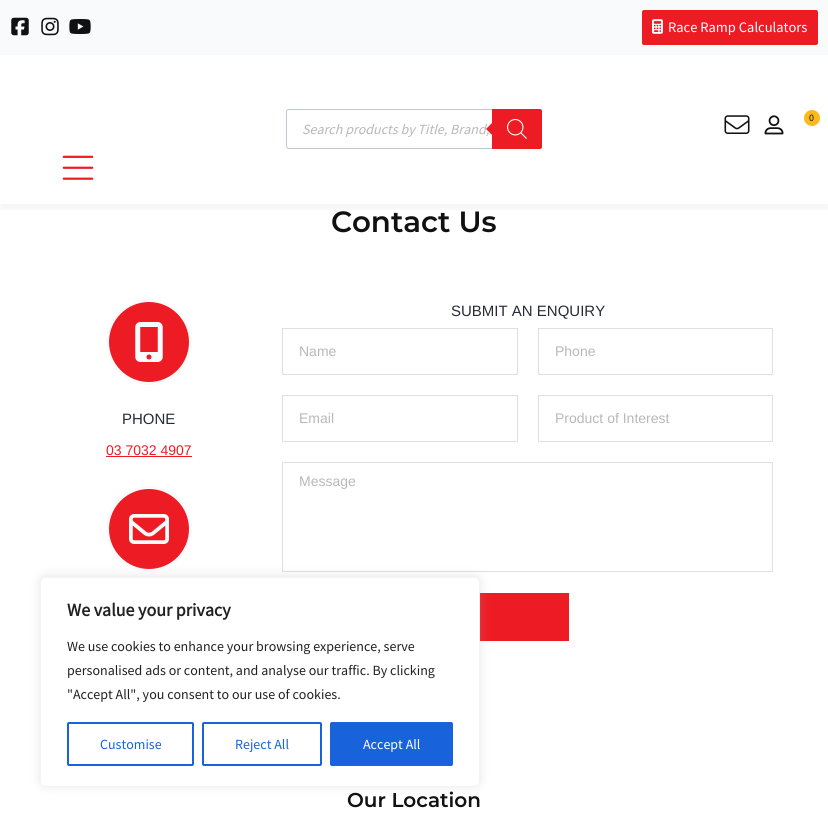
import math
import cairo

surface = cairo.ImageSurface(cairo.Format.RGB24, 828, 827)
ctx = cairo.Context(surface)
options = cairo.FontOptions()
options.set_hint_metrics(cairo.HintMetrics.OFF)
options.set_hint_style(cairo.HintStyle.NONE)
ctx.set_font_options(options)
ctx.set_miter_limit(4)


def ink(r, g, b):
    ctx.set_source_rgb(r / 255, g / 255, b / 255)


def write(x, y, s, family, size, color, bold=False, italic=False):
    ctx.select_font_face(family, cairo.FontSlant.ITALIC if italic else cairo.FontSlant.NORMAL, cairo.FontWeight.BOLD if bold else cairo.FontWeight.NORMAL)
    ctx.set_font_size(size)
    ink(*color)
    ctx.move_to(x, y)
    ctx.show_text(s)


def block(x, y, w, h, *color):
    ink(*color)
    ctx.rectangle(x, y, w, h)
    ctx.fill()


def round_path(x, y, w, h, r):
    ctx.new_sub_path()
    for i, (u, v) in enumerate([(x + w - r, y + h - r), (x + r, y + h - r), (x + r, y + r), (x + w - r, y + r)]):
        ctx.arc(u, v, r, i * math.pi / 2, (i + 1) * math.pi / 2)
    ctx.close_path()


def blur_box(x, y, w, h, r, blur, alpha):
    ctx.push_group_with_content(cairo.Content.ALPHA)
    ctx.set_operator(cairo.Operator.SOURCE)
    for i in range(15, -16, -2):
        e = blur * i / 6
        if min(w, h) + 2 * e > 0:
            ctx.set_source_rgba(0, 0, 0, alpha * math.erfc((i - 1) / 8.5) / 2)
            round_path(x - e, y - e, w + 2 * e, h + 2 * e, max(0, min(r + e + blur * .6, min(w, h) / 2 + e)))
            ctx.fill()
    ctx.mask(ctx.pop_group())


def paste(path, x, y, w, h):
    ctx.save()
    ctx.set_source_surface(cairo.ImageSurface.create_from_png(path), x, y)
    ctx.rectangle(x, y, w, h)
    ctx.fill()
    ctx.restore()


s1 = dict(family="Source Sans Pro", size=14.5, color=(255, 255, 255))
s2 = dict(family="Source Sans Pro", size=10, color=(17, 17, 17))
s3 = dict(family="Source Sans Pro", size=14, color=(184, 184, 184), italic=True)
s4 = dict(family="Montserrat SemiBold", size=29.25, color=(17, 17, 17))
s5 = dict(family="Liberation Sans", size=15, color=(39, 43, 54))
s6 = dict(family="Liberation Sans", size=14, color=(237, 27, 36))
s7 = dict(family="Liberation Sans", size=14, color=(184, 184, 184))
s8 = dict(family="Montserrat SemiBold", size=20, color=(17, 17, 17))
s9 = dict(family="Source Sans Pro", size=18, color=(33, 33, 33), bold=True)
s10 = dict(family="Source Sans Pro", size=14, color=(33, 33, 33))
s11 = dict(family="Source Sans Pro", size=14, color=(24, 99, 220))
s12 = dict(family="Source Sans Pro", size=14, color=(255, 255, 255))

ink(255, 255, 255)
ctx.paint()
block(0, 0, 828, 55, 249, 250, 251)
paste("pic1.png", 11, 17, 18, 19)
paste("pic2.png", 41, 17, 18, 19)
paste("pic3.png", 69, 19, 22, 15)
ink(237, 27, 36)
round_path(642, 10, 176, 35, 2)
ctx.fill()
paste("pic4.png", 652, 19, 11, 15)
write(668, 32, "Race Ramp Calculators", **s1)
ctx.save()
ctx.rectangle(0, 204, 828, 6)
ctx.clip()
ink(0, 0, 0)
blur_box(0, 60, 828, 149, 0, 5, 0.05)
ctx.restore()
paste("pic5.png", 724, 115, 26, 19)
paste("pic6.png", 764, 115, 20, 20)
ink(253, 184, 25)
ctx.arc(812, 118, 8, 0, 2 * math.pi)
ctx.fill()
write(809, 121, "0", **s2)
round_path(286.5, 109.5, 255, 39, 2.5)
ink(190, 200, 206)
ctx.set_line_width(1)
ctx.stroke()
write(302, 134, "Search products by Title, Brand,", **s3)
ink(237, 27, 36)
ctx.new_path()
ctx.move_to(492, 109)
ctx.line_to(540, 109)
ctx.curve_to(541, 109, 542, 110, 542, 111)
ctx.line_to(542, 147)
ctx.curve_to(542, 148, 541, 149, 540, 149)
ctx.line_to(492, 149)
ctx.close_path()
ctx.fill()
ctx.new_path()
ctx.move_to(494, 121)
ctx.line_to(494, 137)
ctx.line_to(486, 129)
ctx.close_path()
ctx.fill()
paste("pic7.png", 507, 119, 20, 20)
paste("pic8.png", 62, 155, 32, 25)
write(331, 232, "Contact Us", **s4)
ink(237, 27, 36)
ctx.new_path()
ctx.arc(149, 342, 41.5, 0, 2 * math.pi)
ctx.fill_preserve()
ink(249, 250, 251)
ctx.set_line_width(3)
ctx.stroke()
paste("pic9.png", 135, 322, 28, 40)
write(122, 424, "PHONE", **s5)
write(106, 455, "03 7032 4907", **s6)
block(106, 456, 86, 1, 237, 27, 36)
ctx.new_path()
ctx.arc(149, 529, 41.5, 0, 2 * math.pi)
ctx.fill_preserve()
ink(249, 250, 251)
ctx.stroke()
paste("pic10.png", 129, 514, 40, 30)
write(451, 316, "SUBMIT AN ENQUIRY", **s5)
ctx.rectangle(282.5, 328.5, 235, 46)
ink(223, 223, 223)
ctx.set_line_width(1)
ctx.stroke()
write(299, 356, "Name", **s7)
ctx.rectangle(538.5, 328.5, 234, 46)
ink(223, 223, 223)
ctx.stroke()
write(555, 356, "Phone", **s7)
ctx.rectangle(282.5, 395.5, 235, 46)
ink(223, 223, 223)
ctx.stroke()
write(299, 423, "Email", **s7)
ctx.rectangle(538.5, 395.5, 234, 46)
ink(223, 223, 223)
ctx.stroke()
write(555, 423, "Product of Interest", **s7)
ctx.rectangle(282.5, 462.5, 490, 109)
ink(223, 223, 223)
ctx.stroke()
write(299, 486, "Message", **s7)
block(480, 593, 89, 48, 237, 27, 36)
write(347, 807, "Our Location", **s8)
ink(172, 171, 171)
blur_box(40, 576, 440, 210, 6, 5, 0.3)
ink(255, 255, 255)
round_path(40.5, 577.5, 439, 209, 5.5)
ctx.fill_preserve()
ink(244, 244, 244)
ctx.stroke()
write(67, 616, "We value your privacy", **s9)
write(67, 651, "We use cookies to enhance your browsing experience, serve", **s10)
write(67, 675, "personalised ads or content, and analyse our traffic. By clicking", **s10)
write(67, 699, "\"Accept All\", you consent to our use of cookies.", **s10)
round_path(68, 723, 125, 42, 1)
ink(24, 99, 220)
ctx.set_line_width(2)
ctx.stroke()
write(100, 749, "Customise", **s11)
round_path(203, 723, 118, 42, 1)
ctx.stroke()
write(235, 749, "Reject All", **s11)
round_path(331, 723, 121, 42, 1)
ctx.fill_preserve()
ctx.stroke()
write(363, 749, "Accept All", **s12)
surface.write_to_png("screenshot.png")
